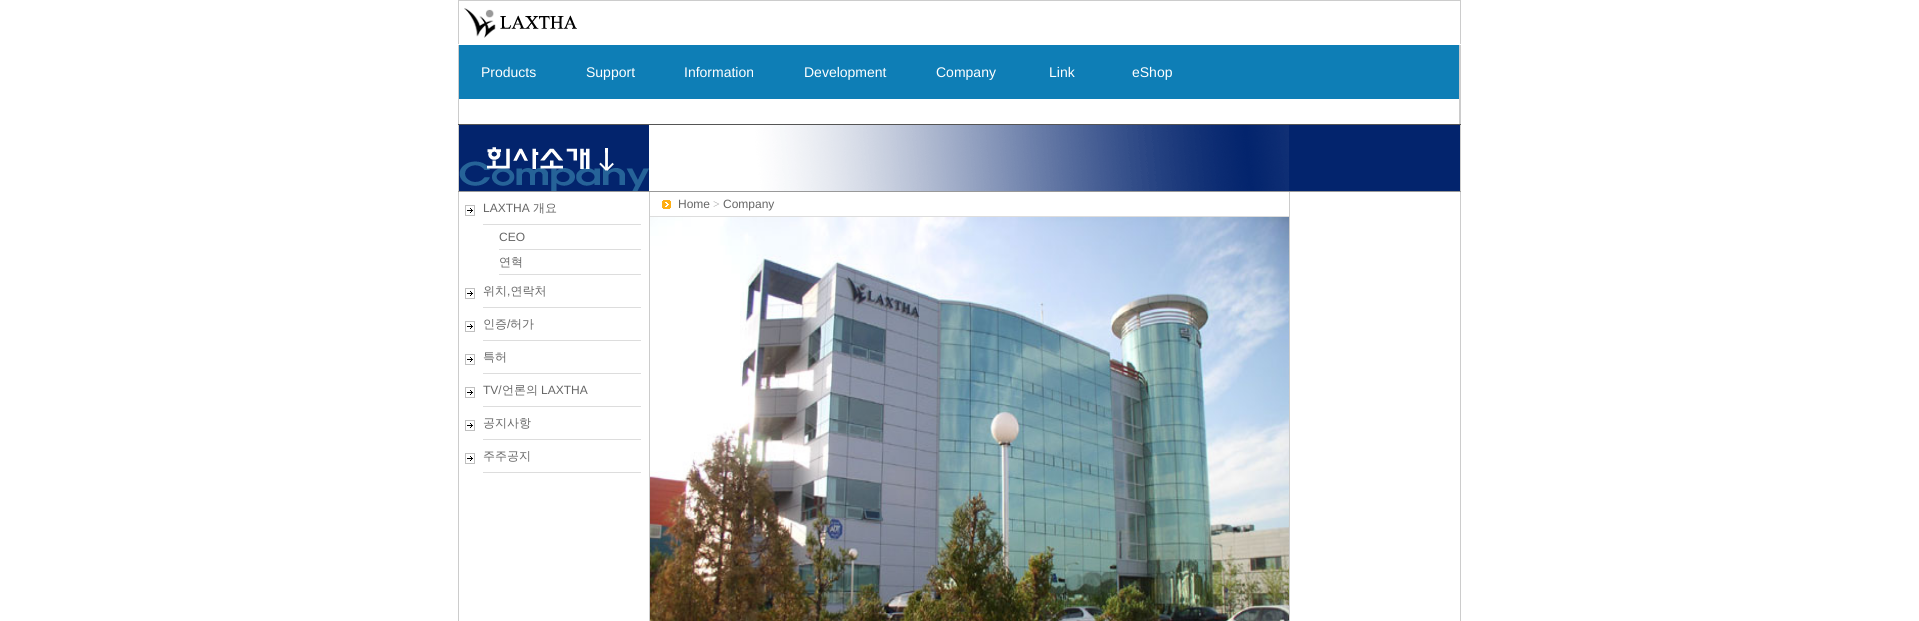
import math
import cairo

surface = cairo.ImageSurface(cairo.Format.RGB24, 1919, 621)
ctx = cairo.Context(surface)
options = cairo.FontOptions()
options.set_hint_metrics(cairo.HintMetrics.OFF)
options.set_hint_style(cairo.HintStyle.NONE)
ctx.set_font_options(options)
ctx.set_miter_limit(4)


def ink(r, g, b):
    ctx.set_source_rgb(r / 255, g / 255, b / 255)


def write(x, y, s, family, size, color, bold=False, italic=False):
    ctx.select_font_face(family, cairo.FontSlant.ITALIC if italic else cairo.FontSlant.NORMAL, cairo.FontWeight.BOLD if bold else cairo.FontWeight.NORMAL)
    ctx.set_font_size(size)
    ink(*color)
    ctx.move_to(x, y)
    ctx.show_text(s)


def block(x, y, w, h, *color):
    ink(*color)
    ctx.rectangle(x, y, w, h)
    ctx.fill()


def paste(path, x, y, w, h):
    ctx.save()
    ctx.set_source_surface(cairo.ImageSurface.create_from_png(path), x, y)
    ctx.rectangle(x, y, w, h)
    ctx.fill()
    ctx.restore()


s1 = dict(family="Liberation Sans", size=14, color=(255, 255, 255))
s2 = dict(family="Liberation Sans", size=12, color=(102, 102, 102))
s3 = dict(family="WenQuanYi Zen Hei Medium", size=12, color=(102, 102, 102))
s4 = dict(family="Liberation Serif", size=12, color=(166, 166, 166))

ink(255, 255, 255)
ctx.paint()
block(458, 0, 1003, 1, 204, 204, 204)
block(458, 1, 1, 43, 204, 204, 204)
paste("pic1.png", 464, 8, 113, 30)
block(1460, 1, 1, 43, 204, 204, 204)
block(458, 45, 1, 79, 204, 204, 204)
block(459, 45, 1000, 54, 14, 126, 182)
write(481, 77, "Products", **s1)
write(586, 77, "Support", **s1)
write(684, 77, "Information", **s1)
write(804, 77, "Development", **s1)
write(936, 77, "Company", **s1)
write(1049, 77, "Link", **s1)
write(1132, 77, "eShop", **s1)
block(1459, 45, 2, 79, 204, 204, 204)
block(458, 124, 1003, 1, 85, 85, 85)
block(458, 125, 1, 66, 204, 204, 204)
block(459, 125, 190, 22, 3, 36, 109)
paste("pic2.png", 459, 147, 190, 44)
paste("pic3.png", 649, 125, 640, 66)
block(1289, 125, 171, 66, 3, 36, 109)
block(1460, 125, 1, 66, 204, 204, 204)
block(458, 191, 1003, 1, 153, 153, 153)
block(458, 192, 1, 429, 204, 204, 204)
paste("pic4.png", 465, 205, 10, 11)
write(483, 212, "LAXTHA", **s2)
write(533, 212, "개요", **s3)
block(483, 224, 158, 1, 221, 221, 221)
write(499, 241, "CEO", **s2)
block(499, 249, 142, 1, 221, 221, 221)
write(499, 266, "연혁", **s3)
block(499, 274, 142, 1, 221, 221, 221)
paste("pic4.png", 465, 288, 10, 11)
write(483, 295, "위치 연락처", **s3)
write(507, 295, ",", **s2)
block(483, 307, 158, 1, 221, 221, 221)
paste("pic4.png", 465, 321, 10, 11)
write(483, 328, "인증", **s3)
write(507, 328, "/", **s2)
write(510, 328, "허가", **s3)
block(483, 340, 158, 1, 221, 221, 221)
paste("pic4.png", 465, 354, 10, 11)
write(483, 361, "특허", **s3)
block(483, 373, 158, 1, 221, 221, 221)
paste("pic4.png", 465, 387, 10, 11)
write(483, 394, "TV/", **s2)
write(502, 394, "언론의", **s3)
write(541, 394, "LAXTHA", **s2)
block(483, 406, 158, 1, 221, 221, 221)
paste("pic4.png", 465, 420, 10, 11)
write(483, 427, "공지사항", **s3)
block(483, 439, 158, 1, 221, 221, 221)
paste("pic4.png", 465, 453, 10, 11)
write(483, 460, "주주공지", **s3)
block(483, 472, 158, 1, 221, 221, 221)
block(649, 192, 1, 429, 204, 204, 204)
paste("pic5.png", 662, 200, 9, 9)
write(678, 208, "Home", **s2)
write(713, 208, ">", **s4)
write(723, 208, "Company", **s2)
block(650, 216, 639, 1, 221, 221, 221)
paste("pic6.png", 650, 217, 639, 404)
block(1289, 192, 1, 429, 204, 204, 204)
block(1460, 192, 1, 429, 204, 204, 204)
surface.write_to_png("screenshot.png")
